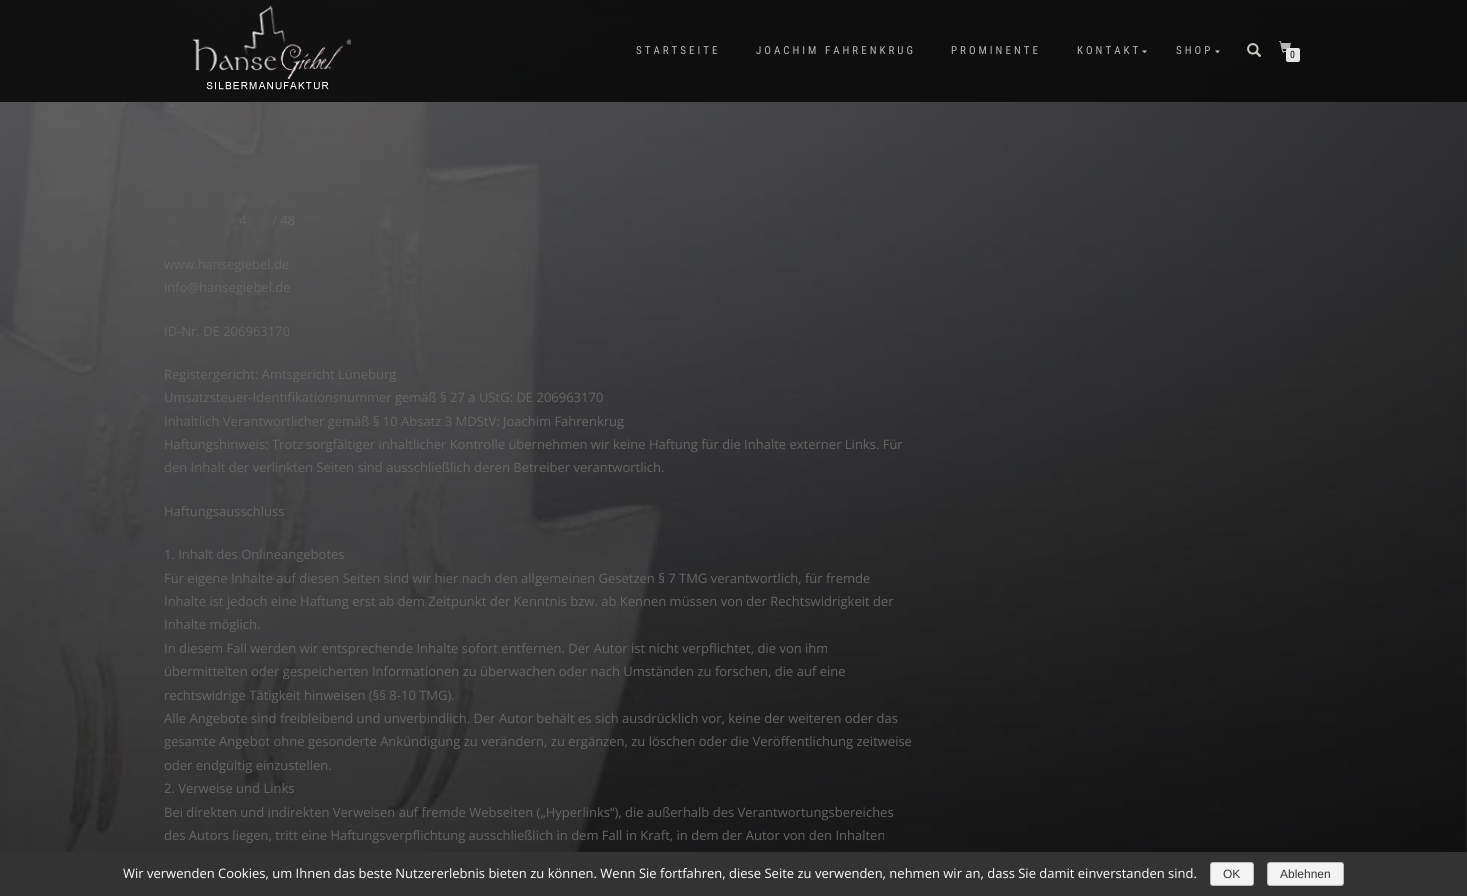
import math
import cairo

surface = cairo.ImageSurface(cairo.Format.RGB24, 1467, 896)
ctx = cairo.Context(surface)
options = cairo.FontOptions()
options.set_hint_metrics(cairo.HintMetrics.OFF)
options.set_hint_style(cairo.HintStyle.NONE)
ctx.set_font_options(options)
ctx.set_miter_limit(4)


def ink(r, g, b):
    ctx.set_source_rgb(r / 255, g / 255, b / 255)


def write(x, y, s, family, size, color, bold=False, italic=False):
    ctx.select_font_face(family, cairo.FontSlant.ITALIC if italic else cairo.FontSlant.NORMAL, cairo.FontWeight.BOLD if bold else cairo.FontWeight.NORMAL)
    ctx.set_font_size(size)
    ink(*color)
    ctx.move_to(x, y)
    ctx.show_text(s)


def write_spaced(x, y, s, letter, word):
    ctx.move_to(x, y)
    for ch in s:
        ctx.show_text(ch)
        ctx.rel_move_to(letter + word * (ch == ' '), 0)


def block(x, y, w, h, *color):
    ink(*color)
    ctx.rectangle(x, y, w, h)
    ctx.fill()


def round_path(x, y, w, h, r):
    ctx.new_sub_path()
    for i, (u, v) in enumerate([(x + w - r, y + h - r), (x + r, y + h - r), (x + r, y + r), (x + w - r, y + r)]):
        ctx.arc(u, v, r, i * math.pi / 2, (i + 1) * math.pi / 2)
    ctx.close_path()


def paste(path, x, y, w, h):
    ctx.save()
    ctx.set_source_surface(cairo.ImageSurface.create_from_png(path), x, y)
    ctx.rectangle(x, y, w, h)
    ctx.fill()
    ctx.restore()


s1 = dict(family="Roboto Condensed", size=10, color=(17, 17, 17))
s2 = dict(family="Open Sans", size=13, color=(102, 102, 102))
s3 = dict(family="Open Sans", size=13, color=(255, 255, 255))
s4 = dict(family="Liberation Sans", size=12, color=(51, 51, 51))

ink(58, 58, 58)
ctx.paint()
paste("pic1.png", 0, 0, 1467, 852)
ctx.set_source_rgba(0.039, 0.039, 0.039, 0.9)
ctx.rectangle(0, 0, 1467, 102)
ctx.fill()
paste("pic2.png", 192, 6, 159, 85)
ctx.select_font_face("Roboto Condensed")
ctx.set_font_size(11)
ink(183, 183, 183)
write_spaced(636, 54, "STARTSEITE", 3, 0)
write_spaced(756, 54, "JOACHIM FAHRENKRUG", 3, 0)
write_spaced(951, 54, "PROMINENTE", 3, 0)
write_spaced(1077, 54, "KONTAKT", 3, 0)
paste("pic3.png", 1142, 50, 5, 4)
write_spaced(1176, 54, "SHOP", 3, 0)
paste("pic4.png", 1215, 50, 5, 4)
paste("pic5.png", 1247, 43, 15, 14)
paste("pic6.png", 1279, 41, 12, 12)
ink(229, 229, 229)
round_path(1286, 48, 14, 14, 2)
ctx.fill()
write(1290, 58, "0", **s1)
write(239, 225, "4", **s2)
write(272, 225, "/ 48", **s2)
write(164, 269, "www.hansegiebel.de", **s2)
write(164, 292, "info@hansegiebel.de", **s2)
write(164, 336, "ID-Nr. DE 206963170", **s2)
write(164, 379, "Registergericht: Amtsgericht Lüneburg", **s2)
write(164, 402, "Umsatzsteuer-Identifikationsnummer gemäß § 27 a UStG: DE 206963170", **s2)
write(164, 426, "Inhaltlich Verantwortlicher gemäß § 10 Absatz 3 MDStV: Joachim Fahrenkrug", **s2)
write(164, 449, "Haftungshinweis: Trotz sorgfältiger inhaltlicher Kontrolle übernehmen wir keine Haftung für die Inhalte externer Links. Für", **s2)
write(164, 472, "den Inhalt der verlinkten Seiten sind ausschließlich deren Betreiber verantwortlich.", **s2)
write(164, 516, "Haftungsausschluss", **s2)
write(164, 559, "1. Inhalt des Onlineangebotes", **s2)
write(164, 583, "Für eigene Inhalte auf diesen Seiten sind wir hier nach den allgemeinen Gesetzen § 7 TMG verantwortlich, für fremde", **s2)
write(164, 606, "Inhalte ist jedoch eine Haftung erst ab dem Zeitpunkt der Kenntnis bzw. ab Kennen müssen von der Rechtswidrigkeit der", **s2)
write(164, 629, "Inhalte möglich.", **s2)
write(164, 653, "In diesem Fall werden wir entsprechende Inhalte sofort entfernen. Der Autor ist nicht verpflichtet, die von ihm", **s2)
write(164, 676, "übermittelten oder gespeicherten Informationen zu überwachen oder nach Umständen zu forschen, die auf eine", **s2)
write(164, 700, "rechtswidrige Tätigkeit hinweisen (§§ 8-10 TMG).", **s2)
write(164, 723, "Alle Angebote sind freibleibend und unverbindlich. Der Autor behält es sich ausdrücklich vor, keine der weiteren oder das", **s2)
write(164, 746, "gesamte Angebot ohne gesonderte Ankündigung zu verändern, zu ergänzen, zu löschen oder die Veröffentlichung zeitweise", **s2)
write(164, 770, "oder endgültig einzustellen.", **s2)
write(164, 793, "2. Verweise und Links", **s2)
write(164, 817, "Bei direkten und indirekten Verweisen auf fremde Webseiten („Hyperlinks“), die außerhalb des Verantwortungsbereiches", **s2)
write(164, 840, "des Autors liegen, tritt eine Haftungsverpflichtung ausschließlich in dem Fall in Kraft, in dem der Autor von den Inhalten", **s2)
block(0, 852, 1467, 44, 51, 51, 51)
write(123, 878, "Wir verwenden Cookies, um Ihnen das beste Nutzererlebnis bieten zu können. Wenn Sie fortfahren, diese Seite zu verwenden, nehmen wir an, dass Sie damit einverstanden sind.", **s3)
ink(243, 243, 243)
round_path(1210.5, 862.5, 43, 23, 2.5)
ctx.fill_preserve()
ink(187, 187, 187)
ctx.set_line_width(1)
ctx.stroke()
write(1223, 878, "OK", **s4)
ink(243, 243, 243)
round_path(1267.5, 862.5, 76, 23, 2.5)
ctx.fill_preserve()
ink(187, 187, 187)
ctx.stroke()
write(1280, 878, "Ablehnen", **s4)
surface.write_to_png("screenshot.png")
